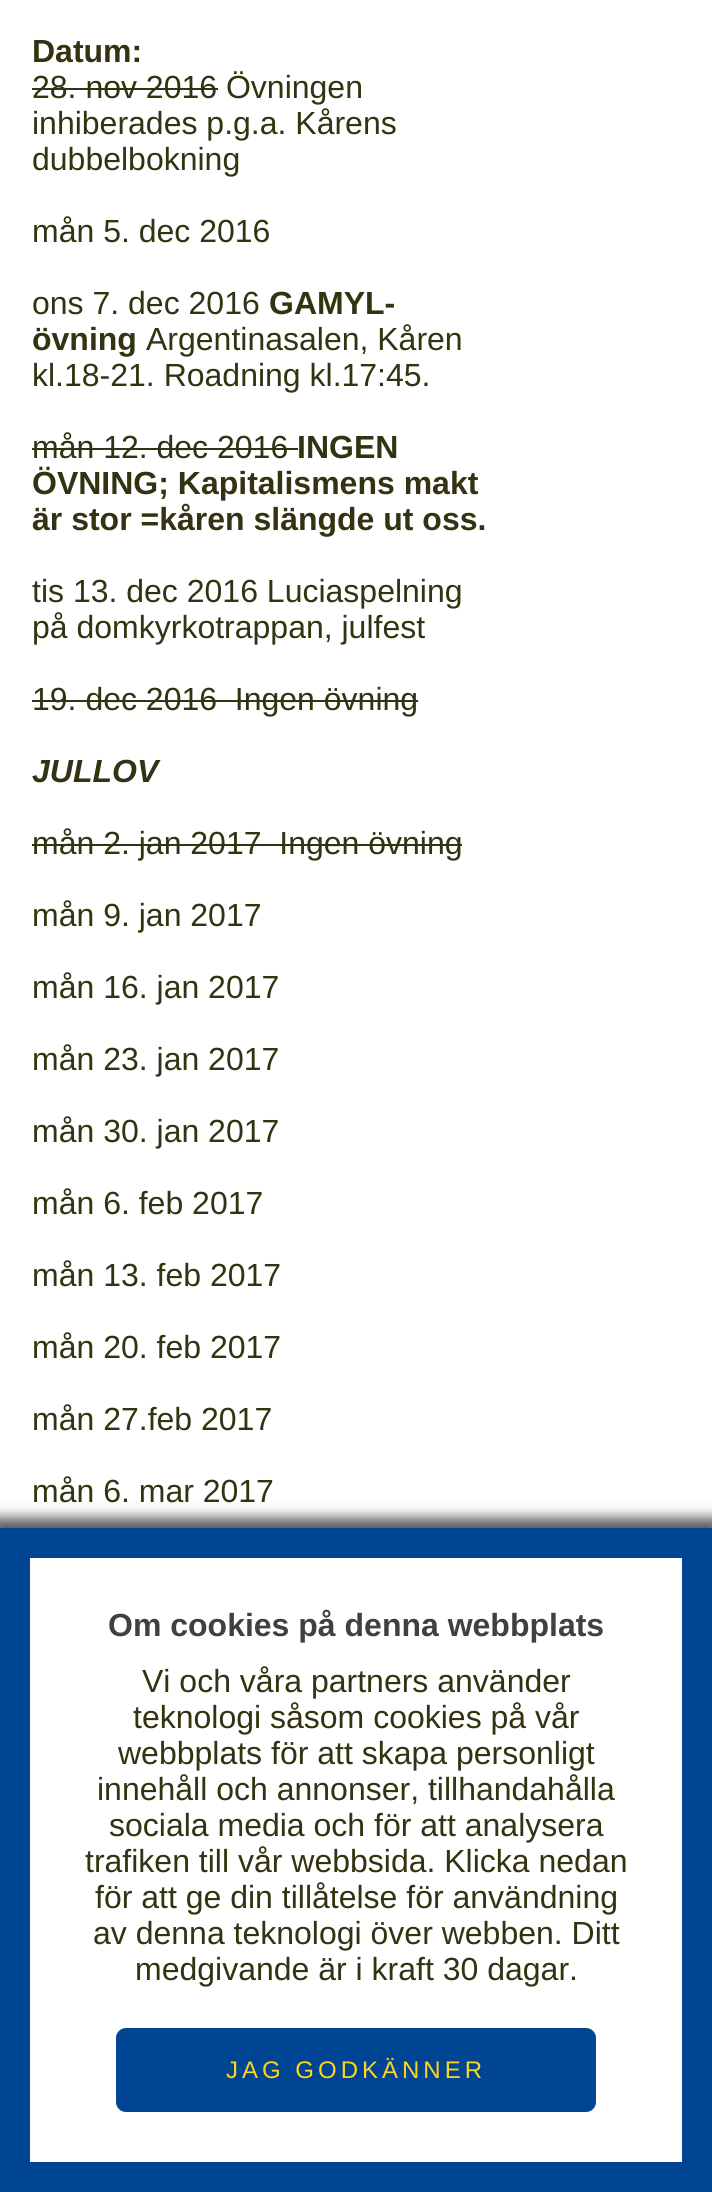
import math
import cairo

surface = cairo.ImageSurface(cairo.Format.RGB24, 712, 2192)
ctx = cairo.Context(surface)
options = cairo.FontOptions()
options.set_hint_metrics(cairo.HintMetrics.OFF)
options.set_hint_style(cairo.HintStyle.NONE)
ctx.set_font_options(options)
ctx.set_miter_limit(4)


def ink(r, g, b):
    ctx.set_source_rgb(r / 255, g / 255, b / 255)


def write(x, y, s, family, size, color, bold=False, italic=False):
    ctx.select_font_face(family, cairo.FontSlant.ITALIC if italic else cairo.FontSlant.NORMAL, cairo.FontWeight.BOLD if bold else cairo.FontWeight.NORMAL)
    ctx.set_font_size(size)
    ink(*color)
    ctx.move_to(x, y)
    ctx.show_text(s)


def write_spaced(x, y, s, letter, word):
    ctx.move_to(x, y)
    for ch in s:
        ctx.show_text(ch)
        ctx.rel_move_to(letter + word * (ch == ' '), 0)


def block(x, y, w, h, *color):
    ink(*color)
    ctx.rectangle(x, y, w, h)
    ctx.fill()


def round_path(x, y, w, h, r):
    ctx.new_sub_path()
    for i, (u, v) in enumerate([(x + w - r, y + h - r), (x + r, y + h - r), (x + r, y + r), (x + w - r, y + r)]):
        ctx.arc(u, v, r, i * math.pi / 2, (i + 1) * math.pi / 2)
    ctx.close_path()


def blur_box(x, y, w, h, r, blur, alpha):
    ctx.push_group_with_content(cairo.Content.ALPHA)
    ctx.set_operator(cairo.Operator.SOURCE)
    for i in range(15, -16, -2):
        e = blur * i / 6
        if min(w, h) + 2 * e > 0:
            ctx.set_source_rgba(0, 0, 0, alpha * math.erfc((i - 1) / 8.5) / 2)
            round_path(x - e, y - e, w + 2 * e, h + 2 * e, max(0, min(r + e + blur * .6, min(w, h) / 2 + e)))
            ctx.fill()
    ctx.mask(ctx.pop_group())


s1 = dict(family="Liberation Sans", size=32, color=(51, 51, 17), bold=True)
s2 = dict(family="Liberation Sans", size=32, color=(51, 51, 17))
s3 = dict(family="Liberation Sans", size=32, color=(51, 51, 17), bold=True, italic=True)
s4 = dict(family="Liberation Sans", size=32, color=(64, 64, 64), bold=True)

ink(255, 255, 255)
ctx.paint()
write(32, 62, "Datum:", **s1)
write(32, 98, "28. nov 2016 Övningen", **s2)
block(32, 88, 186, 2, 51, 51, 17)
write(32, 134, "inhiberades p.g.a. Kårens", **s2)
write(32, 170, "dubbelbokning", **s2)
write(32, 242, "mån 5. dec 2016", **s2)
write(32, 314, "ons 7. dec 2016", **s2)
write(269, 314, "GAMYL-", **s1)
write(32, 350, "övning", **s1)
write(146, 350, "Argentinasalen, Kåren", **s2)
write(32, 386, "kl.18-21. Roadning kl.17:45.", **s2)
write(32, 458, "mån 12. dec 2016", **s2)
block(32, 448, 266, 2, 51, 51, 17)
write(297, 458, "INGEN", **s1)
write(32, 494, "ÖVNING; Kapitalismens makt", **s1)
write(32, 530, "är stor =kåren slängde ut oss.", **s1)
write(32, 602, "tis 13. dec 2016 Luciaspelning", **s2)
write(32, 638, "på domkyrkotrappan, julfest", **s2)
write(32, 710, "19. dec 2016  Ingen övning", **s2)
block(32, 700, 386, 2, 51, 51, 17)
write(32, 782, "JULLOV", **s3)
write(32, 854, "mån 2. jan 2017  Ingen övning", **s2)
block(32, 844, 430, 2, 51, 51, 17)
write(32, 926, "mån 9. jan 2017", **s2)
write(32, 998, "mån 16. jan 2017", **s2)
write(32, 1070, "mån 23. jan 2017", **s2)
write(32, 1142, "mån 30. jan 2017", **s2)
write(32, 1214, "mån 6. feb 2017", **s2)
write(32, 1286, "mån 13. feb 2017", **s2)
write(32, 1358, "mån 20. feb 2017", **s2)
write(32, 1430, "mån 27.feb 2017", **s2)
write(32, 1502, "mån 6. mar 2017", **s2)
ink(85, 85, 85)
blur_box(-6, 1518, 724, 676, 0, 7, 1)
ink(255, 255, 255)
ctx.rectangle(15, 1543, 682, 634)
ctx.fill_preserve()
ink(0, 68, 148)
ctx.set_line_width(30)
ctx.stroke()
write(108, 1636, "Om cookies på denna webbplats", **s4)
write(142, 1692, "Vi och våra partners använder", **s2)
write(133, 1728, "teknologi såsom cookies på vår", **s2)
write(118, 1764, "webbplats för att skapa personligt", **s2)
write(97, 1800, "innehåll och annonser, tillhandahålla", **s2)
write(109, 1836, "sociala media och för att analysera", **s2)
write(85, 1872, "trafiken till vår webbsida. Klicka nedan", **s2)
write(95, 1908, "för att ge din tillåtelse för användning", **s2)
write(93, 1944, "av denna teknologi över webben. Ditt", **s2)
write(135, 1980, "medgivande är i kraft 30 dagar.", **s2)
ink(0, 68, 148)
round_path(116, 2028, 480, 84, 10)
ctx.fill()
ctx.set_font_size(24)
ink(255, 214, 23)
write_spaced(226, 2078, "JAG GODKÄNNER", 4, 0)
surface.write_to_png("screenshot.png")
